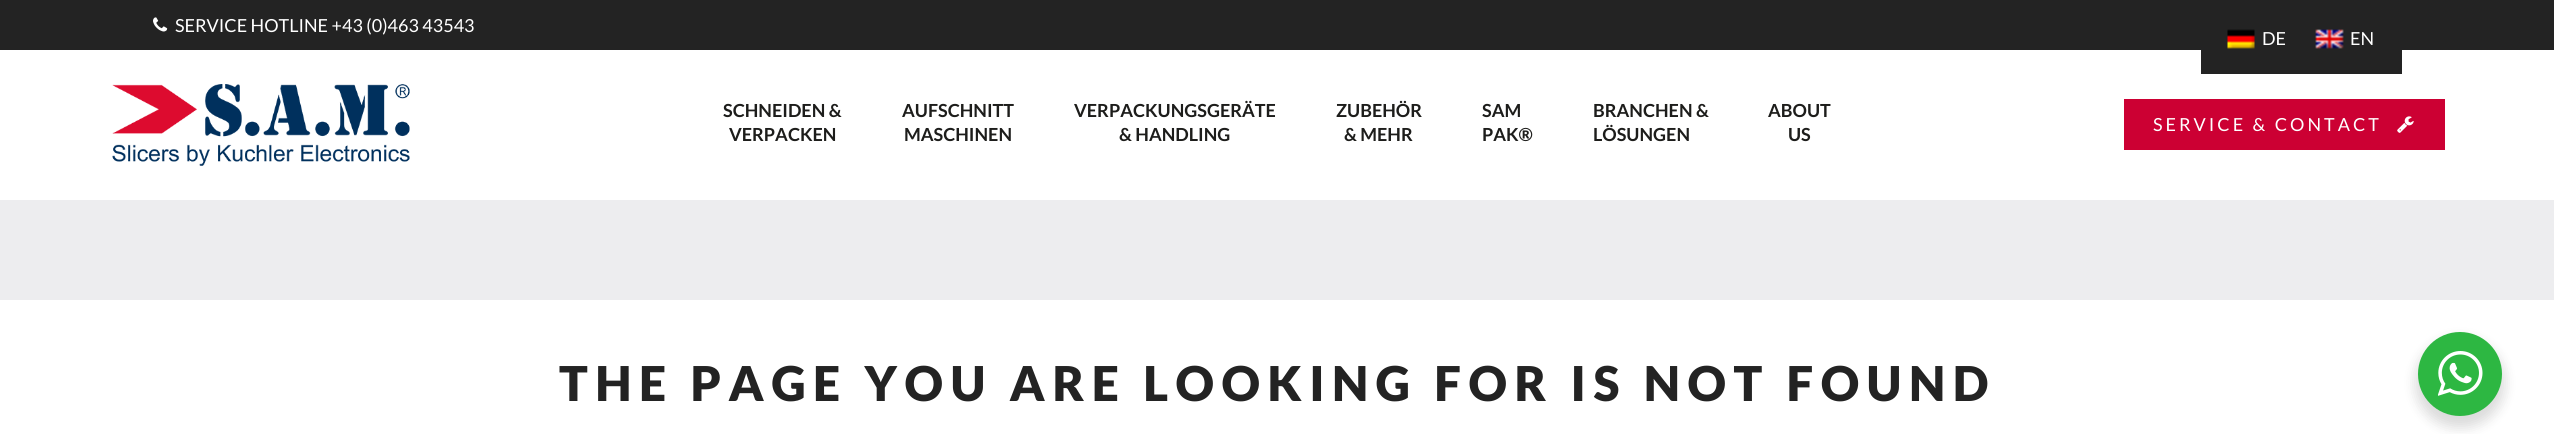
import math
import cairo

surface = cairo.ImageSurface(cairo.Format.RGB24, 2554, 434)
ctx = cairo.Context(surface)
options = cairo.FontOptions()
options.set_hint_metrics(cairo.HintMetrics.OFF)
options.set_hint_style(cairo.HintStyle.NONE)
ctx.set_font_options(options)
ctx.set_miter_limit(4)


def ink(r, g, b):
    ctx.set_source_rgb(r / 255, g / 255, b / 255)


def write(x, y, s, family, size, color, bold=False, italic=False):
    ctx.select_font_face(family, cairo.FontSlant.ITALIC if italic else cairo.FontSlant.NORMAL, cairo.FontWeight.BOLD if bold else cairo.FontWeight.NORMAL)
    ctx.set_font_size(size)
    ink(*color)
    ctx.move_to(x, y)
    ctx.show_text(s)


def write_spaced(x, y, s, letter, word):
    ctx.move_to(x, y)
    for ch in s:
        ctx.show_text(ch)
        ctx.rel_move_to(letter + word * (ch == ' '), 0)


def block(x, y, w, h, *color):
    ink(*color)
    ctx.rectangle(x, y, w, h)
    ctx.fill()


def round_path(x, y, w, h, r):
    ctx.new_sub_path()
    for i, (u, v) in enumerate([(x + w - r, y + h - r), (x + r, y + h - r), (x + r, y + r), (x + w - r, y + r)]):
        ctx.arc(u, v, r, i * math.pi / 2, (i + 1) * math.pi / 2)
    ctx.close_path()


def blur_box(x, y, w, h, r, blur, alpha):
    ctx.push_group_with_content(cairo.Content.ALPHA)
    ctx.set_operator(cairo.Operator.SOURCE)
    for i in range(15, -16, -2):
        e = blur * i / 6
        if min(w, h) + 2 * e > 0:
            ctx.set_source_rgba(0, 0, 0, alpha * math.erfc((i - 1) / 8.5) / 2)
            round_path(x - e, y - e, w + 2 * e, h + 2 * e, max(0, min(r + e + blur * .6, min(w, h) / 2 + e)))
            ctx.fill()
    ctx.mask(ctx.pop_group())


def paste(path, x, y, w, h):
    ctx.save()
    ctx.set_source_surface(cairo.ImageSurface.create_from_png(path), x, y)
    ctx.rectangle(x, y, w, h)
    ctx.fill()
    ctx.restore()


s1 = dict(family="Lato", size=18, color=(255, 255, 255))
s2 = dict(family="Lato", size=18, color=(29, 29, 27), bold=True)

ink(255, 255, 255)
ctx.paint()
block(0, 0, 2554, 50, 35, 35, 35)
paste("pic1.png", 153, 17, 15, 15)
write(175, 32, "SERVICE HOTLINE +43 (0)463 43543", **s1)
block(2201, 50, 201, 24, 35, 35, 35)
paste("pic2.png", 2227, 29, 28, 20)
write(2262, 45, "DE", **s1)
paste("pic3.png", 2315, 29, 29, 20)
write(2350, 45, "EN", **s1)
paste("pic4.png", 112, 84, 298, 82)
write(723, 117, "SCHNEIDEN &", **s2)
write(729, 141, "VERPACKEN", **s2)
write(902, 117, "AUFSCHNITT", **s2)
write(904, 141, "MASCHINEN", **s2)
write(1074, 117, "VERPACKUNGSGERÄTE", **s2)
write(1119, 141, "& HANDLING", **s2)
write(1336, 117, "ZUBEHÖR", **s2)
write(1344, 141, "& MEHR", **s2)
write(1482, 117, "SAM", **s2)
write(1482, 141, "PAK®", **s2)
write(1593, 117, "BRANCHEN &", **s2)
write(1593, 141, "LÖSUNGEN", **s2)
write(1768, 117, "ABOUT", **s2)
write(1788, 141, "US", **s2)
block(2124, 99, 321, 51, 204, 0, 51)
ctx.select_font_face("Lato")
ink(255, 255, 255)
write_spaced(2153, 131, "SERVICE & CONTACT", 3, 0)
paste("pic5.png", 2397, 116, 17, 17)
block(0, 200, 2554, 100, 237, 237, 239)
ctx.select_font_face("Lato Black")
ctx.set_font_size(48)
ink(35, 35, 35)
write_spaced(559, 401, "THE PAGE YOU ARE LOOKING FOR IS NOT FOUND", 7.5, 0)
ink(0, 0, 0)
blur_box(2415, 338, 90, 90, 45, 6, 0.14)
ink(45, 183, 66)
ctx.arc(2460, 374, 42, 0, 2 * math.pi)
ctx.fill()
paste("pic6.png", 2438, 351, 45, 45)
surface.write_to_png("screenshot.png")
